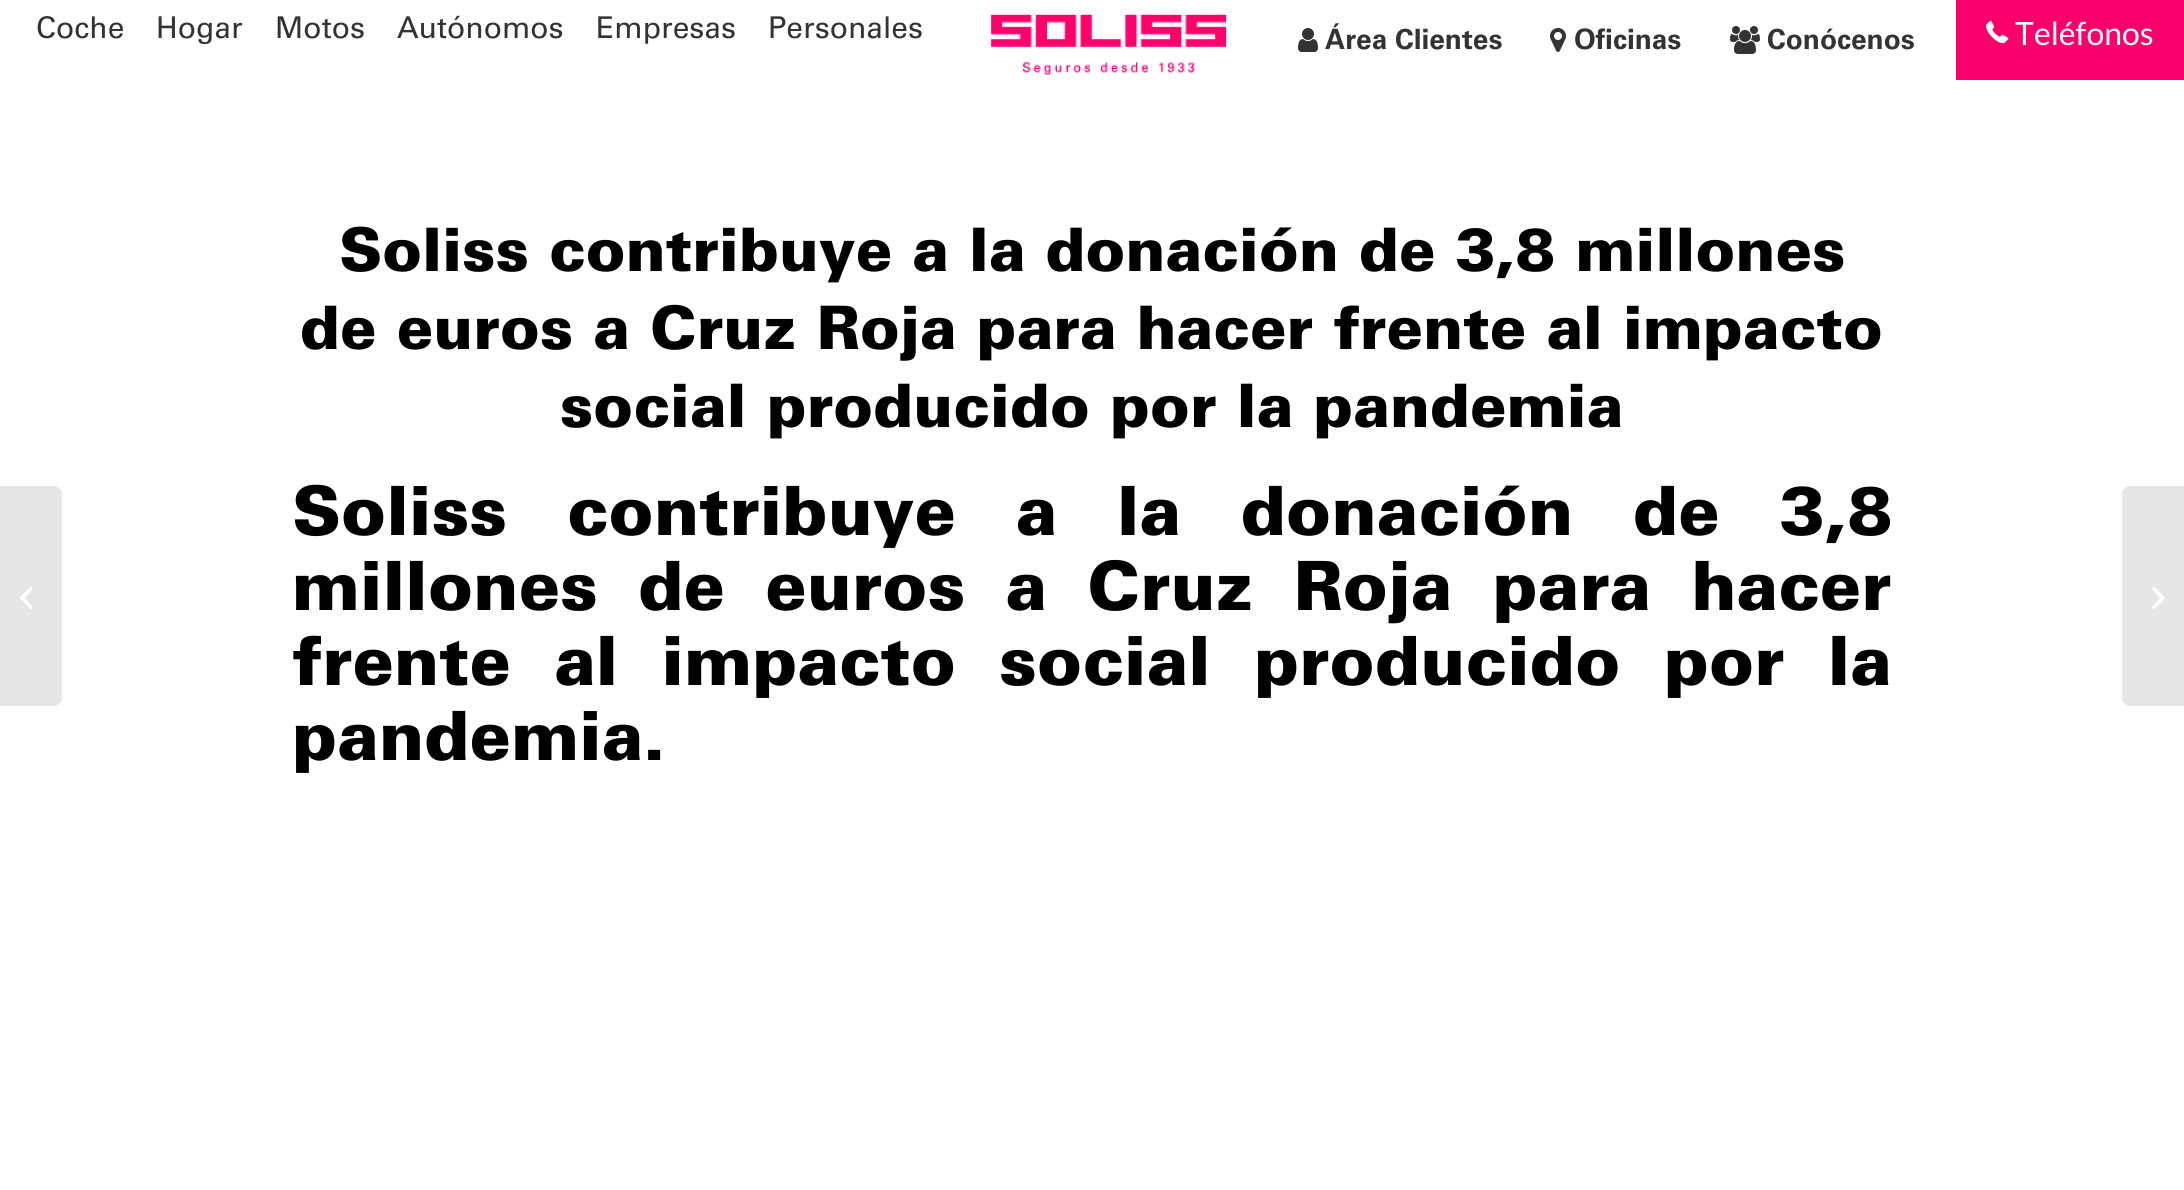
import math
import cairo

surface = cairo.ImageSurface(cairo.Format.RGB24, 2184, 1190)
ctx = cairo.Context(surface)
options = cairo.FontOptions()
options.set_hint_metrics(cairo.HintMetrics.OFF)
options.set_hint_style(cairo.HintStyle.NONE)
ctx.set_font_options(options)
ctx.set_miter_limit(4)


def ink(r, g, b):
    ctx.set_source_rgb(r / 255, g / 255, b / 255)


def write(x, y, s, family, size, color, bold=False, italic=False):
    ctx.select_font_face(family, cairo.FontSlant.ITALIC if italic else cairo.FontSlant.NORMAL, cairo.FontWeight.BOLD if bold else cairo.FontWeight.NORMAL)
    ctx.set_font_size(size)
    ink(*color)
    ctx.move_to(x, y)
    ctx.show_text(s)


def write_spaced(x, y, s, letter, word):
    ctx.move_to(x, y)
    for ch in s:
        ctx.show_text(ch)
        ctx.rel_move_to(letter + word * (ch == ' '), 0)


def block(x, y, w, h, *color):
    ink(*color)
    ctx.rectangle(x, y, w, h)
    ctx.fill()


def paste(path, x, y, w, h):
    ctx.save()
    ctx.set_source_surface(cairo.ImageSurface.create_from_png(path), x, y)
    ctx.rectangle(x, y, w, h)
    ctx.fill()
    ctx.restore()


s1 = dict(family="Univers", size=30, color=(51, 51, 51))
s2 = dict(family="Univers", size=28, color=(51, 51, 51), bold=True)
s3 = dict(family="Lato", size=32, color=(255, 255, 255))
s4 = dict(family="Univers Black", size=60, color=(0, 0, 0))
s5 = dict(family="Univers Black", size=68, color=(0, 0, 0))

ink(255, 255, 255)
ctx.paint()
write(36, 38, "Coche", **s1)
write(156, 38, "Hogar", **s1)
write(275, 38, "Motos", **s1)
write(397, 38, "Autónomos", **s1)
write(596, 38, "Empresas", **s1)
write(768, 38, "Personales", **s1)
paste("pic1.png", 991, 14, 236, 61)
paste("pic2.png", 1298, 28, 20, 24)
write(1325, 49, "Área Clientes", **s2)
paste("pic3.png", 1550, 28, 16, 24)
write(1574, 49, "Oficinas", **s2)
paste("pic4.png", 1730, 26, 30, 28)
write(1767, 49, "Conócenos", **s2)
block(1956, 0, 228, 80, 250, 0, 108)
paste("pic5.png", 1986, 20, 23, 24)
write(2015, 45, "Teléfonos", **s3)
ink(230, 230, 230)
ctx.new_path()
ctx.move_to(0, 486)
ctx.line_to(54, 486)
ctx.curve_to(58.5, 486, 62, 489.5, 62, 494)
ctx.line_to(62, 698)
ctx.curve_to(62, 702.5, 58.5, 706, 54, 706)
ctx.line_to(0, 706)
ctx.close_path()
ctx.fill()
paste("pic6.png", 20, 587, 12, 22)
write(339, 271, "Soliss contribuye a la donación de 3,8 millones", **s4)
write(300, 349, "de euros a Cruz Roja para hacer frente al impacto", **s4)
write(560, 427, "social producido por la pandemia", **s4)
ctx.set_font_size(68)
write_spaced(292, 535, "Soliss contribuye a la donación de 3,8", 0, 37)
write_spaced(292, 610, "millones de euros a Cruz Roja para hacer", 0, 17.5)
write_spaced(292, 685, "frente al impacto social producido por la", 0, 20.5)
write(292, 760, "pandemia.", **s5)
ink(230, 230, 230)
ctx.new_path()
ctx.move_to(2130, 486)
ctx.line_to(2184, 486)
ctx.line_to(2184, 706)
ctx.line_to(2130, 706)
ctx.curve_to(2125.5, 706, 2122, 702.5, 2122, 698)
ctx.line_to(2122, 494)
ctx.curve_to(2122, 489.5, 2125.5, 486, 2130, 486)
ctx.close_path()
ctx.fill()
paste("pic7.png", 2152, 587, 12, 22)
surface.write_to_png("screenshot.png")
